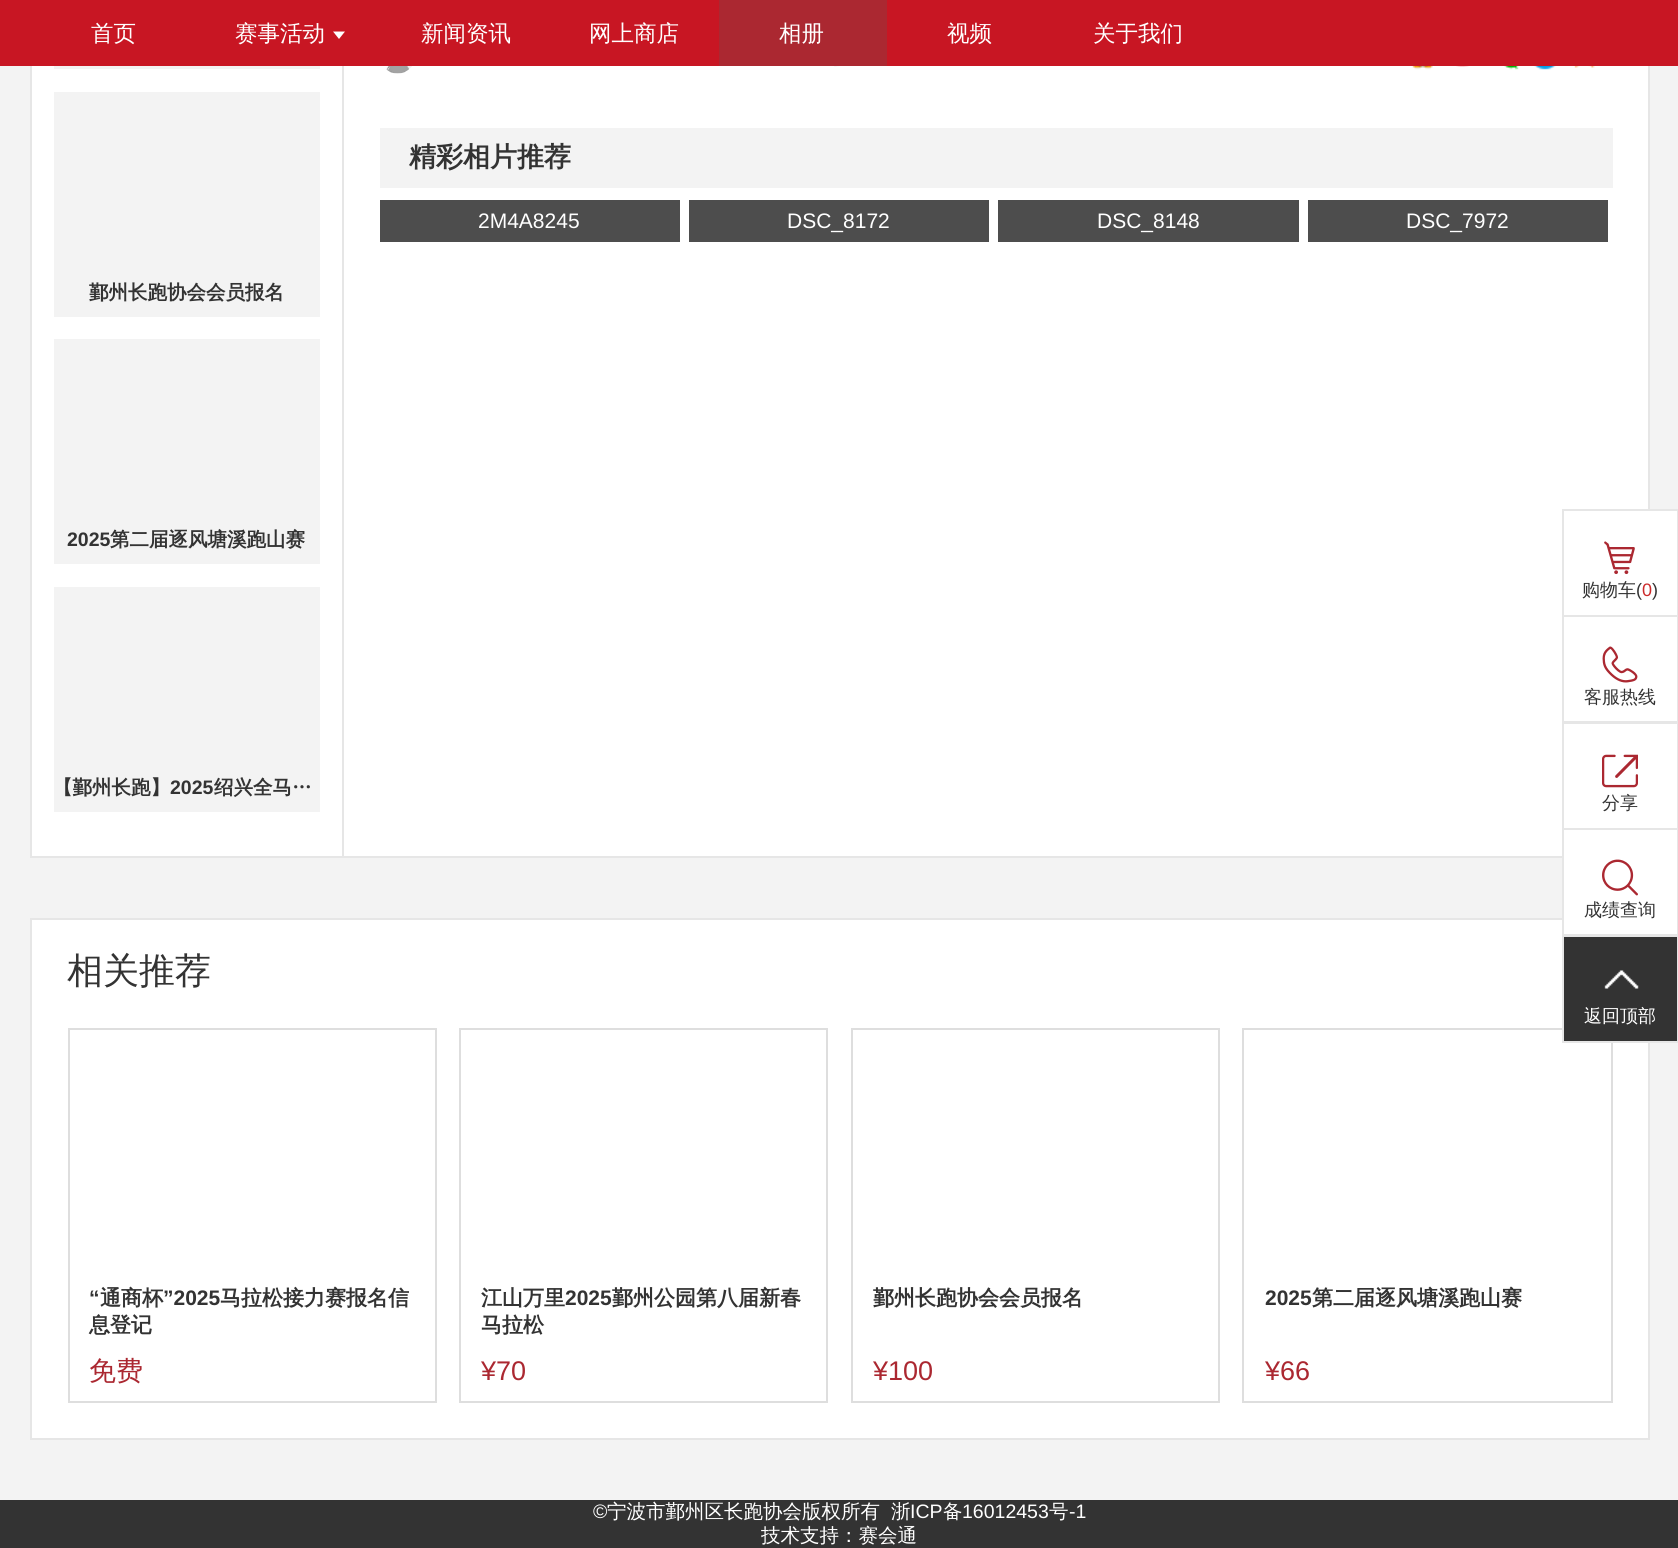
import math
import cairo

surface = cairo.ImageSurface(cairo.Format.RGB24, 1678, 1548)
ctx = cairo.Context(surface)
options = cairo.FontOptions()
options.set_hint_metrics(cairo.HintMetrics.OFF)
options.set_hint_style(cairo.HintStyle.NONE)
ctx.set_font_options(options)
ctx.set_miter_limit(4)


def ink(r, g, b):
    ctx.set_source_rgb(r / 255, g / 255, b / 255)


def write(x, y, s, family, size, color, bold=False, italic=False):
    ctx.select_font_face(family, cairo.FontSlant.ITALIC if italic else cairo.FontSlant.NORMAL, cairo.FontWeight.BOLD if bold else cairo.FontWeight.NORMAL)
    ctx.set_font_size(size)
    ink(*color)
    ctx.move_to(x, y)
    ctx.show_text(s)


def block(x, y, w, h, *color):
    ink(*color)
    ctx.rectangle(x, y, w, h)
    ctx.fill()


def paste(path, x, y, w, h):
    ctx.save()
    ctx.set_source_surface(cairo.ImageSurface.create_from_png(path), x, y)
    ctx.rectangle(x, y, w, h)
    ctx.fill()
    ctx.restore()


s1 = dict(family="WenQuanYi Zen Hei Medium", size=22.5, color=(255, 255, 255))
s2 = dict(family="WenQuanYi Zen Hei", size=27, color=(51, 51, 51), bold=True)
s3 = dict(family="Liberation Sans", size=21, color=(255, 255, 255))
s4 = dict(family="WenQuanYi Zen Hei", size=19.5, color=(51, 51, 51), bold=True)
s5 = dict(family="Liberation Sans", size=19.5, color=(51, 51, 51), bold=True)
s6 = dict(family="WenQuanYi Zen Hei Medium", size=18, color=(51, 51, 51))
s7 = dict(family="Liberation Sans", size=18, color=(51, 51, 51))
s8 = dict(family="Liberation Sans", size=18, color=(203, 41, 41))
s9 = dict(family="WenQuanYi Zen Hei Medium", size=18, color=(255, 255, 255))
s10 = dict(family="WenQuanYi Zen Hei Medium", size=36, color=(51, 51, 51))
s11 = dict(family="Liberation Sans", size=21, color=(51, 51, 51), bold=True)
s12 = dict(family="WenQuanYi Zen Hei", size=21, color=(51, 51, 51), bold=True)
s13 = dict(family="WenQuanYi Zen Hei Medium", size=27, color=(171, 40, 49))
s14 = dict(family="Liberation Sans", size=27, color=(171, 40, 49))
s15 = dict(family="Liberation Sans", size=19.5, color=(255, 255, 255))
s16 = dict(family="WenQuanYi Zen Hei Medium", size=19.5, color=(255, 255, 255))

ink(243, 243, 243)
ctx.paint()
block(32, 66, 1616, 790, 255, 255, 255)
ctx.rectangle(31, -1, 1618, 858)
ink(230, 230, 230)
ctx.stroke()
block(0, 0, 1678, 66, 200, 22, 35)
write(91, 41, "首页", **s1)
write(235, 41, "赛事活动", **s1)
ctx.new_path()
ctx.move_to(333, 31.5)
ctx.line_to(345, 31.5)
ctx.line_to(339, 39)
ctx.close_path()
ctx.fill()
write(421, 41, "新闻资讯", **s1)
write(589, 41, "网上商店", **s1)
block(719, 0, 168, 66, 171, 40, 49)
write(779, 41, "相册", **s1)
write(947, 41, "视频", **s1)
write(1093, 41, "关于我们", **s1)
paste("pic1.png", 382, 66, 31, 8)
paste("pic2.png", 834, 66, 5, 1)
paste("pic3.png", 1411, 66, 22, 4)
paste("pic4.png", 1456, 66, 13, 1)
paste("pic5.png", 1504, 66, 15, 4)
paste("pic6.png", 1534, 66, 22, 4)
paste("pic7.png", 1574, 66, 21, 2)
block(380, 128, 1233, 60, 243, 243, 243)
write(409, 166, "精彩相片推荐", **s2)
block(380, 200, 300, 42, 77, 77, 77)
write(478, 228, "2M4A8245", **s3)
block(689, 200, 300, 42, 77, 77, 77)
write(787, 228, "DSC_8172", **s3)
block(998, 200, 301, 42, 77, 77, 77)
write(1097, 228, "DSC_8148", **s3)
block(1308, 200, 300, 42, 77, 77, 77)
write(1406, 228, "DSC_7972", **s3)
block(342, 66, 2, 791, 230, 230, 230)
block(54, 66, 266, 3, 243, 243, 243)
block(54, 92, 266, 225, 243, 243, 243)
write(89, 299, "鄞州长跑协会会员报名", **s4)
block(54, 339, 266, 225, 243, 243, 243)
write(67, 546, "2025", **s5)
write(110, 546, "第二届逐风塘溪跑山赛", **s4)
block(54, 587, 266, 225, 243, 243, 243)
write(53, 794, "【鄞州长跑】", **s4)
write(170, 794, "2025", **s5)
write(214, 794, "绍兴全马…", **s4)
block(1648, 511, 29, 104, 255, 255, 255)
ctx.rectangle(1563, 510, 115, 106)
ink(230, 230, 230)
ctx.stroke()
paste("pic8.png", 1604, 541, 31, 34)
write(1582, 596, "购物车", **s6)
write(1636, 596, "(", **s7)
write(1642, 596, "0", **s8)
write(1652, 596, ")", **s7)
block(1648, 617, 29, 104, 255, 255, 255)
ctx.rectangle(1563, 616, 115, 106)
ink(230, 230, 230)
ctx.stroke()
paste("pic9.png", 1602, 646, 36, 37)
write(1584, 703, "客服热线", **s6)
block(1648, 724, 29, 104, 255, 255, 255)
ctx.rectangle(1563, 723, 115, 106)
ink(230, 230, 230)
ctx.stroke()
paste("pic10.png", 1602, 754, 36, 34)
write(1602, 809, "分享", **s6)
ink(255, 255, 255)
ctx.rectangle(31, 919, 1618, 520)
ctx.fill_preserve()
ink(230, 230, 230)
ctx.stroke()
ink(255, 255, 255)
ctx.rectangle(1563, 829, 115, 106)
ctx.fill_preserve()
ink(230, 230, 230)
ctx.stroke()
paste("pic11.png", 1602, 859, 36, 37)
write(1584, 916, "成绩查询", **s6)
ctx.rectangle(1243, 1029, 369, 373)
ink(222, 222, 222)
ctx.stroke()
block(1564, 937, 113, 104, 51, 51, 51)
paste("pic12.png", 1604, 970, 35, 19)
ctx.rectangle(1563, 936, 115, 106)
ink(230, 230, 230)
ctx.stroke()
write(1584, 1022, "返回顶部", **s9)
write(67, 983, "相关推荐", **s10)
ctx.rectangle(69, 1029, 367, 373)
ink(222, 222, 222)
ctx.stroke()
write(89, 1305, "“", **s11)
write(100, 1305, "通商杯", **s12)
write(163, 1305, "”2025", **s11)
write(220, 1305, "马拉松接力赛报名信", **s12)
write(89, 1332, "息登记", **s12)
write(89, 1380, "免费", **s13)
ctx.rectangle(460, 1029, 367, 373)
ink(222, 222, 222)
ctx.stroke()
write(481, 1305, "江山万里", **s12)
write(565, 1305, "2025", **s11)
write(612, 1305, "鄞州公园第八届新春", **s12)
write(481, 1332, "马拉松", **s12)
write(481, 1380, "¥70", **s14)
ctx.rectangle(852, 1029, 367, 373)
ink(222, 222, 222)
ctx.stroke()
write(873, 1305, "鄞州长跑协会会员报名", **s12)
write(873, 1380, "¥100", **s14)
write(1265, 1305, "2025", **s11)
write(1312, 1305, "第二届逐风塘溪跑山赛", **s12)
write(1265, 1380, "¥66", **s14)
block(0, 1500, 1678, 48, 51, 51, 51)
write(593, 1518, "©", **s15)
write(607, 1518, "宁波市鄞州区长跑协会版权所有", **s16)
write(891, 1518, "浙", **s16)
write(910, 1518, "ICP", **s15)
write(943, 1518, "备", **s16)
write(962, 1518, "16012453", **s15)
write(1049, 1518, "号", **s16)
write(1069, 1518, "-1", **s15)
write(761, 1542, "技术支持：赛会通", **s16)
surface.write_to_png("screenshot.png")
